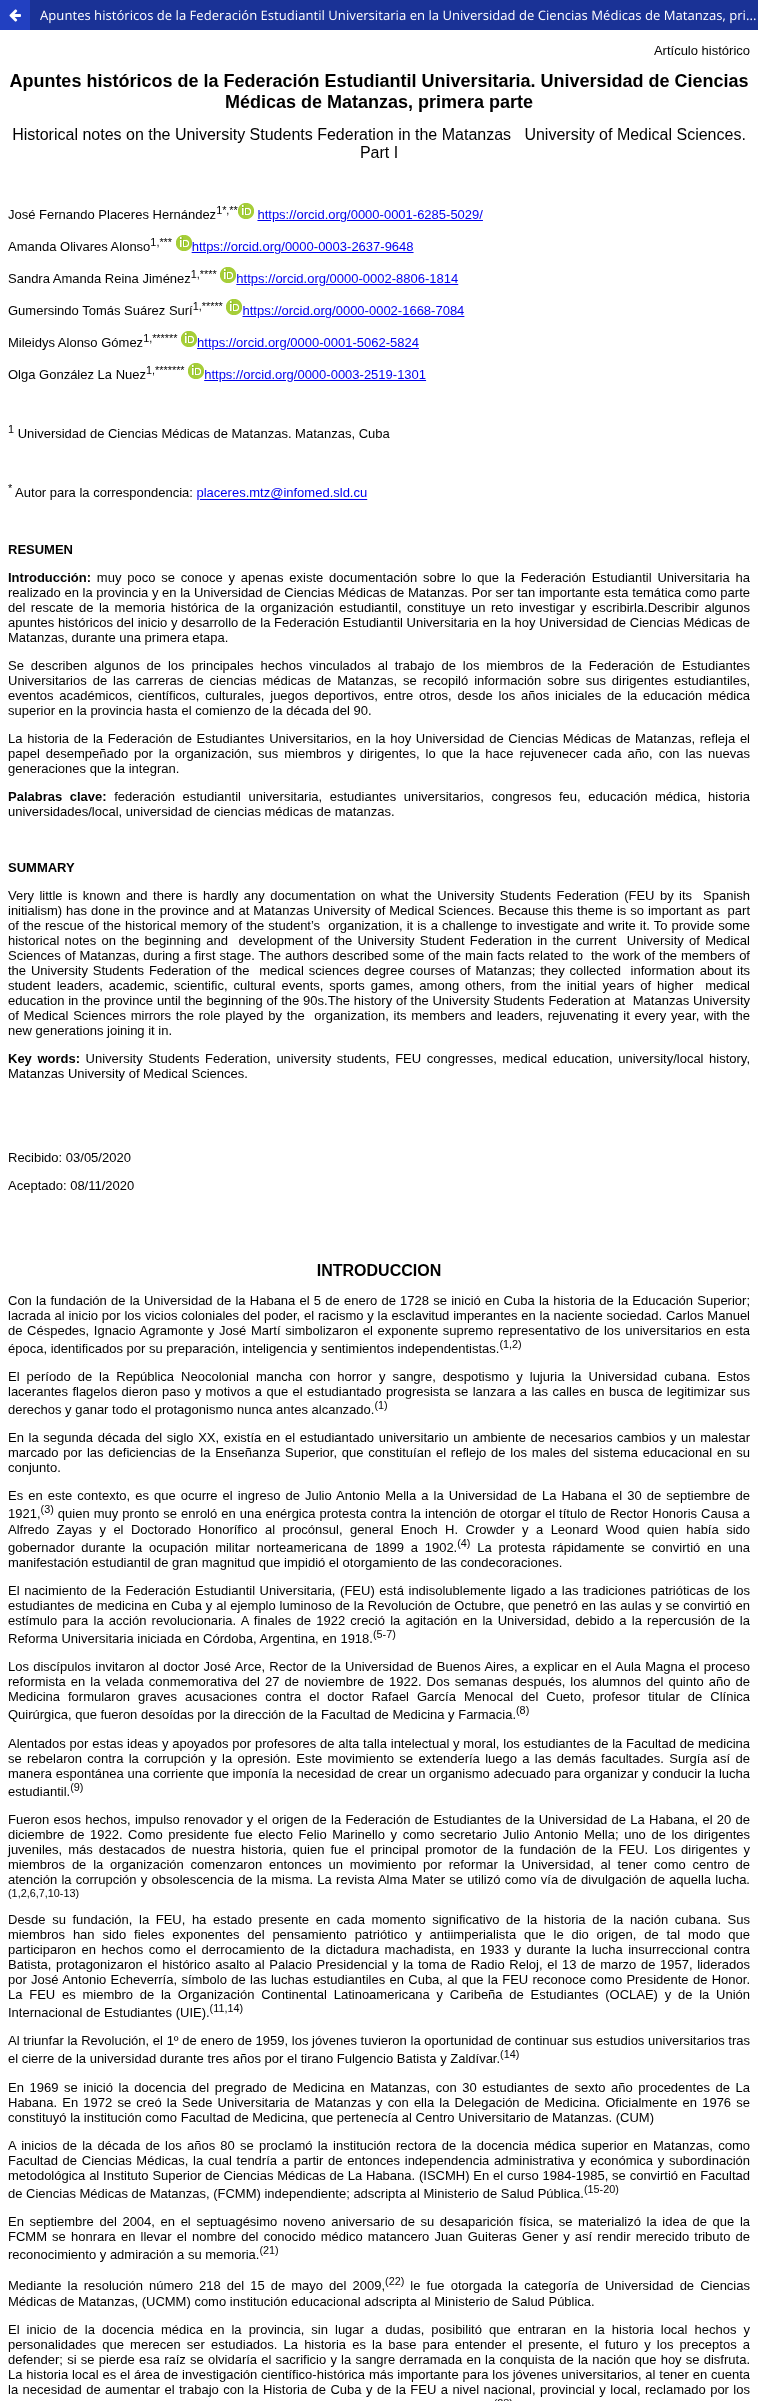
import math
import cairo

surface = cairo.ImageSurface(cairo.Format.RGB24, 758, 2401)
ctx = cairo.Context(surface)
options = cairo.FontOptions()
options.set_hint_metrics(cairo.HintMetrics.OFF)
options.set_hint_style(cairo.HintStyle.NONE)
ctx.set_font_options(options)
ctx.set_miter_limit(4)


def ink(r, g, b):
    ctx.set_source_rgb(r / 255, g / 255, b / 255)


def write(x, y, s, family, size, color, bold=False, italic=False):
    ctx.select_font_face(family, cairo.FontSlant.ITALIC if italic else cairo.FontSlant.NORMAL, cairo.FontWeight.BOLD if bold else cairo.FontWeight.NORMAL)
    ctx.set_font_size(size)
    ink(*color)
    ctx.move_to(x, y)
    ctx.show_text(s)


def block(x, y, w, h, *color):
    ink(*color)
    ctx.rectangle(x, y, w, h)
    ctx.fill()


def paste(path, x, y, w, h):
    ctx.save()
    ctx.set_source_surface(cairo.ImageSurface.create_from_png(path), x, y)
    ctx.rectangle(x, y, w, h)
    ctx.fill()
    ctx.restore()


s1 = dict(family="Noto Sans", size=13.02, color=(255, 255, 255))

ink(255, 255, 255)
ctx.paint()
block(30, 0, 728, 30, 26, 50, 150)
block(0, 0, 30, 30, 34, 64, 193)
paste("pic1.png", 9, 9, 12, 13)
write(40, 20, "Apuntes históricos de la Federación Estudiantil Universitaria en la Universidad de Ciencias Médicas de Matanzas, pri…", **s1)
paste("pic2.png", 7, 46, 743, 2355)
surface.write_to_png("screenshot.png")
